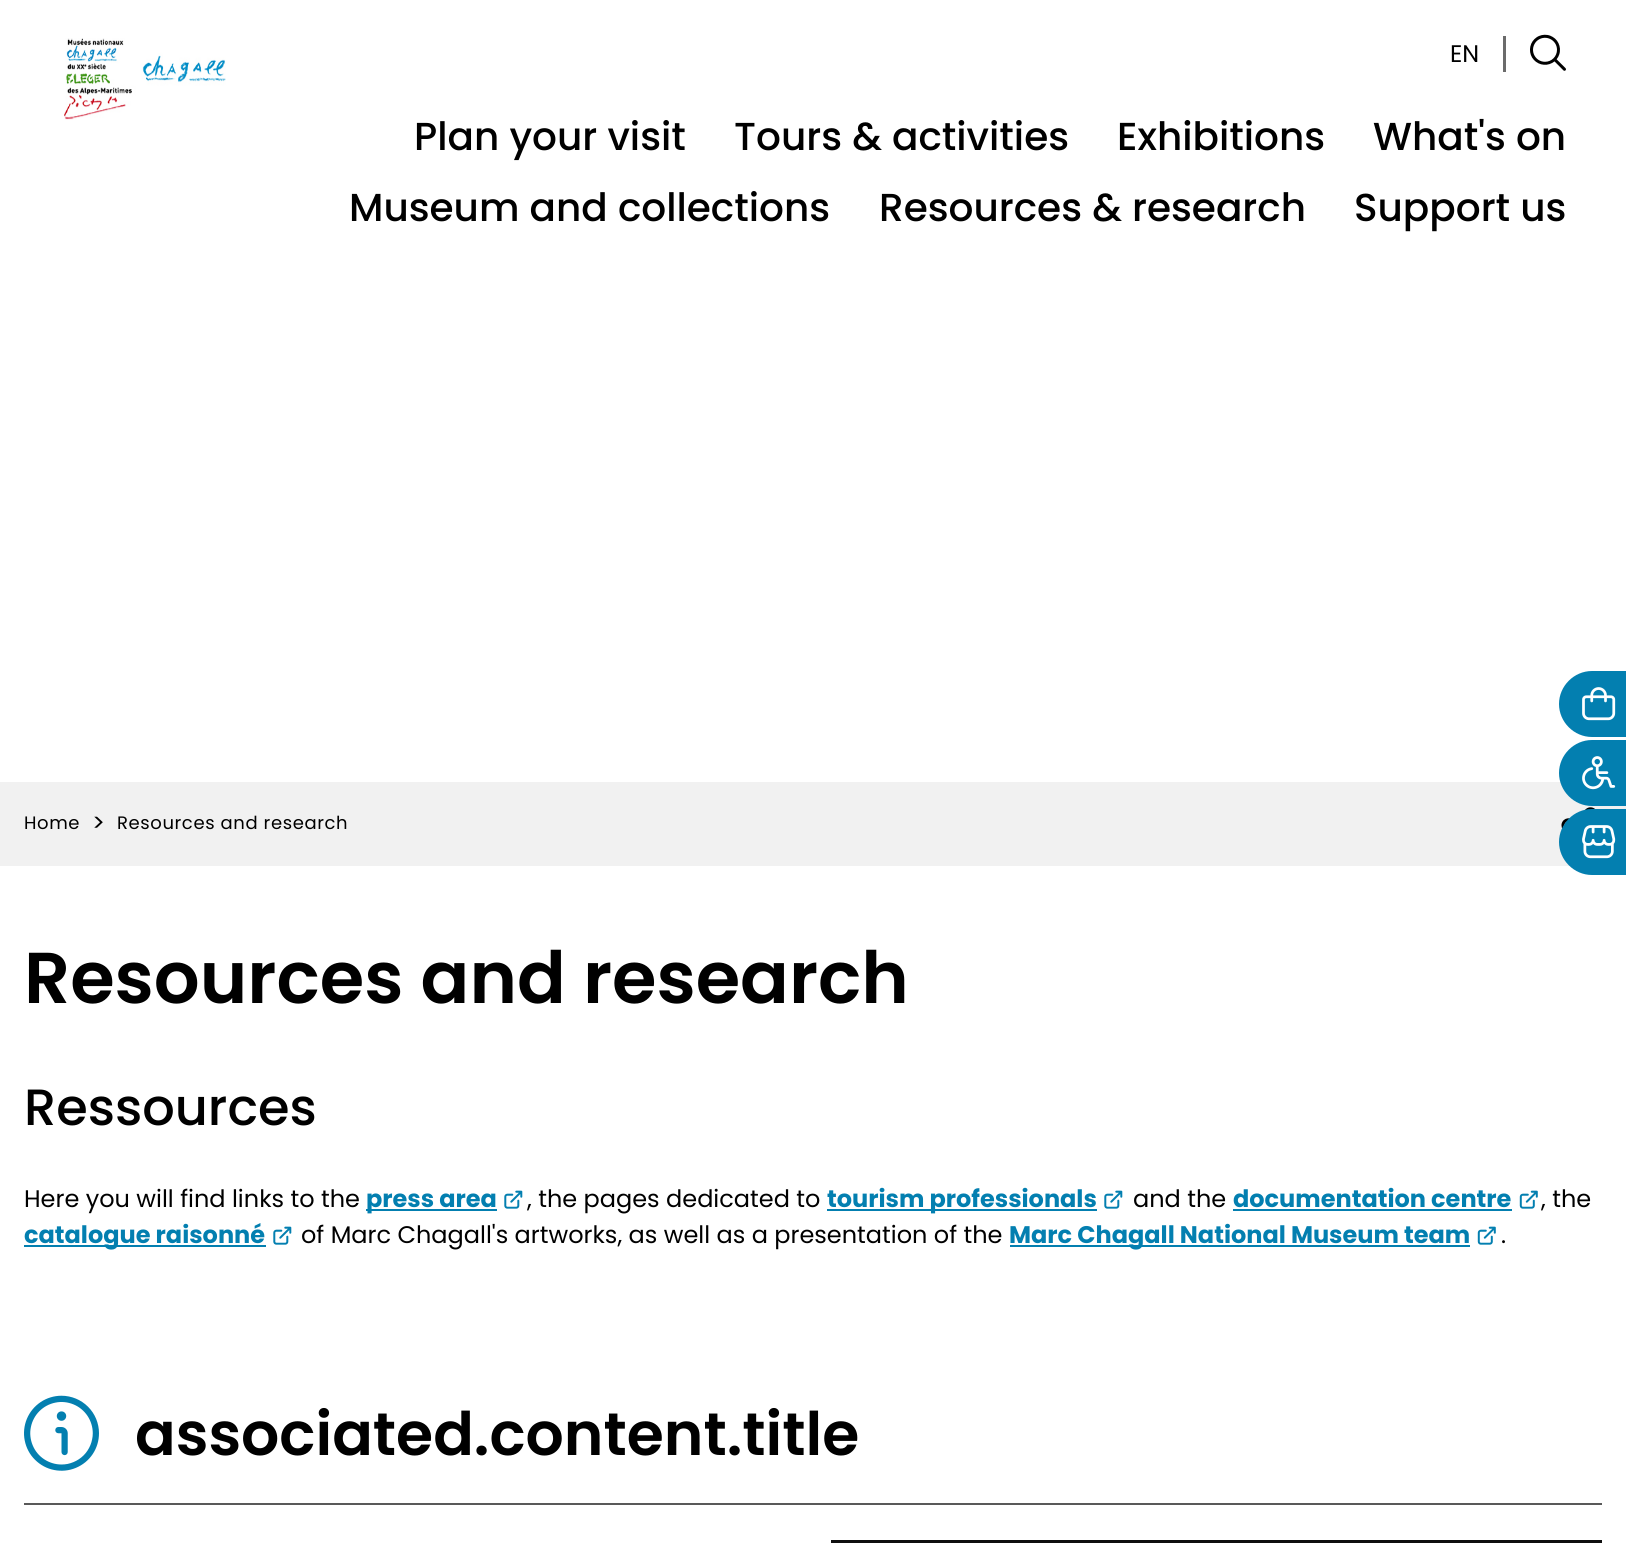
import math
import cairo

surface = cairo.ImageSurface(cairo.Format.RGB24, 1626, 1543)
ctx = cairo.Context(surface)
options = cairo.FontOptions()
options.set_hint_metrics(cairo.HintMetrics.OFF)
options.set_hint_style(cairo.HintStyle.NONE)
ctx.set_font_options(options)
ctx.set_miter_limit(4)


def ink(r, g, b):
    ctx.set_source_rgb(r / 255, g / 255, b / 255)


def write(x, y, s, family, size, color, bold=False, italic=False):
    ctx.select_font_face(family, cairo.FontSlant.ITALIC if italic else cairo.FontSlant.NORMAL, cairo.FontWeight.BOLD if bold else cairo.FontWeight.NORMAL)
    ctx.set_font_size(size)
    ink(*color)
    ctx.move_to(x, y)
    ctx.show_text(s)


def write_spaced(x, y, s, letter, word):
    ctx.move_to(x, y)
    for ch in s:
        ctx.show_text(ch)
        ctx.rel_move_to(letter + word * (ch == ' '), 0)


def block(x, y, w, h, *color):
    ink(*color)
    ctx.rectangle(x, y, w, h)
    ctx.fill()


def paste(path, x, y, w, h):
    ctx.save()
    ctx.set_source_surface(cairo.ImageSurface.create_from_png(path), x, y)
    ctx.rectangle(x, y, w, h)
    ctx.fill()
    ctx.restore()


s1 = dict(family="Poppins", size=24, color=(0, 0, 0))
s2 = dict(family="Poppins Medium", size=39, color=(0, 0, 0))
s3 = dict(family="Poppins SemiBold", size=72, color=(0, 0, 0))
s4 = dict(family="Poppins Medium", size=51, color=(0, 0, 0))
s5 = dict(family="Poppins", size=24, color=(3, 127, 176), bold=True)
s6 = dict(family="Poppins SemiBold", size=60, color=(0, 0, 0))

ink(255, 255, 255)
ctx.paint()
paste("pic1.png", 64, 38, 162, 82)
block(1503, 36, 3, 36, 107, 107, 107)
write(1450, 62, "EN", **s1)
paste("pic2.png", 1530, 34, 36, 37)
write(414, 150, "Plan your visit", **s2)
write(734, 150, "Tours & activities", **s2)
write(1117, 150, "Exhibitions", **s2)
write(1373, 150, "What's on", **s2)
write(349, 221, "Museum and collections", **s2)
write(879, 221, "Resources & research", **s2)
write(1354, 221, "Support us", **s2)
ink(3, 127, 176)
ctx.new_path()
ctx.move_to(1592, 671)
ctx.line_to(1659, 671)
ctx.line_to(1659, 737)
ctx.line_to(1592, 737)
ctx.curve_to(1574, 737, 1559, 722, 1559, 704)
ctx.curve_to(1559, 686, 1574, 671, 1592, 671)
ctx.close_path()
ctx.fill()
paste("pic3.png", 1582, 687, 34, 34)
block(0, 782, 1626, 84, 241, 241, 241)
ink(3, 127, 176)
ctx.new_path()
ctx.move_to(1592, 740)
ctx.line_to(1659, 740)
ctx.line_to(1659, 806)
ctx.line_to(1592, 806)
ctx.curve_to(1574, 806, 1559, 791, 1559, 773)
ctx.curve_to(1559, 755, 1574, 740, 1592, 740)
ctx.close_path()
ctx.fill()
paste("pic4.png", 1582, 756, 34, 34)
paste("pic6.png", 1561, 807, 34, 22)
ctx.new_path()
ctx.move_to(1592, 809)
ctx.line_to(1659, 809)
ctx.line_to(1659, 875)
ctx.line_to(1592, 875)
ctx.curve_to(1574, 875, 1559, 860, 1559, 842)
ctx.curve_to(1559, 824, 1574, 809, 1592, 809)
ctx.close_path()
ctx.fill()
paste("pic5.png", 1582, 825, 34, 34)
ctx.select_font_face("Poppins")
ctx.set_font_size(18)
ink(0, 0, 0)
write_spaced(24, 829, "Home", 0.6, 0)
write(92, 831, ">", **s1)
ctx.set_font_size(18)
write_spaced(117, 829, "Resources and research", 0.6, 0)
write(24, 1003, "Resources and research", **s3)
write(24, 1125, "Ressources", **s4)
write(24, 1207, "Here you will find links to the", **s1)
block(366, 1209, 131, 2, 3, 127, 176)
write(366, 1207, "press area", **s5)
paste("pic7.png", 504, 1190, 19, 19)
write(527, 1207, ", the pages dedicated to", **s1)
block(827, 1209, 270, 2, 3, 127, 176)
write(827, 1207, "tourism professionals", **s5)
paste("pic7.png", 1104, 1190, 19, 19)
write(1133, 1207, "and the", **s1)
write(1233, 1207, "documentation centre", **s5)
block(1233, 1209, 279, 2, 3, 127, 176)
paste("pic8.png", 1519, 1190, 19, 19)
write(1541, 1207, ", the", **s1)
block(24, 1245, 242, 2, 3, 127, 176)
write(24, 1243, "catalogue raisonné", **s5)
paste("pic7.png", 273, 1226, 19, 19)
write(301, 1243, "of Marc Chagall's artworks, as well as a presentation of the", **s1)
block(1010, 1245, 460, 2, 3, 127, 176)
write(1009, 1243, "Marc Chagall National Museum team", **s5)
paste("pic8.png", 1477, 1226, 19, 19)
write(1501, 1243, ".", **s1)
block(24, 1503, 1578, 2, 89, 89, 89)
paste("pic9.png", 24, 1395, 75, 76)
write(135, 1455, "associated.content.title", **s6)
block(831, 1540, 771, 3, 15, 15, 15)
surface.write_to_png("screenshot.png")
